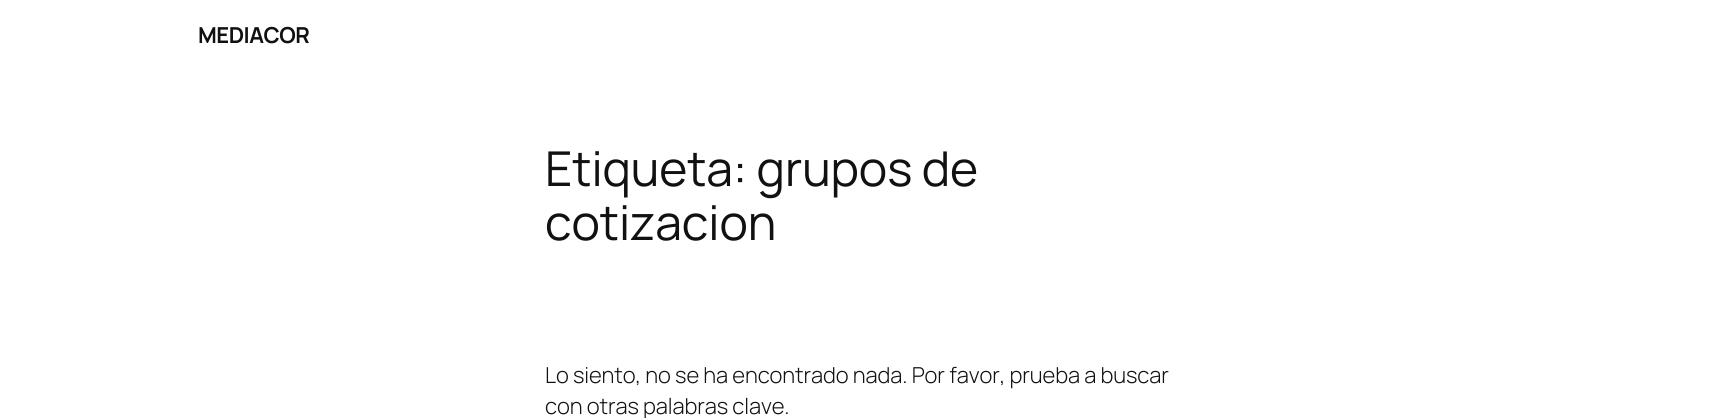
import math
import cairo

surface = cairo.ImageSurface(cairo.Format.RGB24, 1735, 418)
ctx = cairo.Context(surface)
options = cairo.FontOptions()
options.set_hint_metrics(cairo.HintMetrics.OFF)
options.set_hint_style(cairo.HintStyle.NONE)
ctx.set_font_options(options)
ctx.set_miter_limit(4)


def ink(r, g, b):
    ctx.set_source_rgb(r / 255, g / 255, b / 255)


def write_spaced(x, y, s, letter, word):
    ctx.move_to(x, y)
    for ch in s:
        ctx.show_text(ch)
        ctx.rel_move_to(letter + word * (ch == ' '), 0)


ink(255, 255, 255)
ctx.paint()
ctx.select_font_face("Manrope", cairo.FontSlant.NORMAL, cairo.FontWeight.BOLD)
ctx.set_font_size(22)
ink(17, 17, 17)
write_spaced(198, 43, "MEDIACOR", -0.5, 0)
ctx.select_font_face("Manrope")
ctx.set_font_size(48)
write_spaced(545, 186, "Etiqueta: grupos de", -0.1, 0)
write_spaced(545, 240, "cotizacion", -0.1, 0)
ctx.select_font_face("Manrope Light")
ctx.set_font_size(22)
write_spaced(545, 383, "Lo siento, no se ha encontrado nada. Por favor, prueba a buscar", -0.1, 0)
write_spaced(545, 414, "con otras palabras clave.", -0.1, 0)
surface.write_to_png("screenshot.png")
